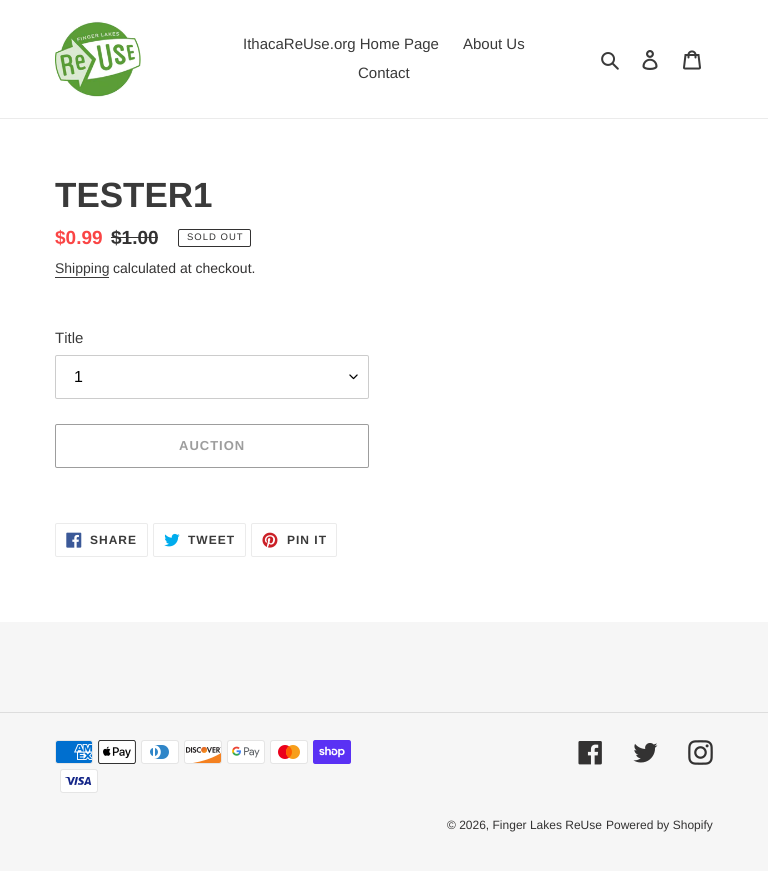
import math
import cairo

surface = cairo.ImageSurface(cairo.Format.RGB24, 768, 891)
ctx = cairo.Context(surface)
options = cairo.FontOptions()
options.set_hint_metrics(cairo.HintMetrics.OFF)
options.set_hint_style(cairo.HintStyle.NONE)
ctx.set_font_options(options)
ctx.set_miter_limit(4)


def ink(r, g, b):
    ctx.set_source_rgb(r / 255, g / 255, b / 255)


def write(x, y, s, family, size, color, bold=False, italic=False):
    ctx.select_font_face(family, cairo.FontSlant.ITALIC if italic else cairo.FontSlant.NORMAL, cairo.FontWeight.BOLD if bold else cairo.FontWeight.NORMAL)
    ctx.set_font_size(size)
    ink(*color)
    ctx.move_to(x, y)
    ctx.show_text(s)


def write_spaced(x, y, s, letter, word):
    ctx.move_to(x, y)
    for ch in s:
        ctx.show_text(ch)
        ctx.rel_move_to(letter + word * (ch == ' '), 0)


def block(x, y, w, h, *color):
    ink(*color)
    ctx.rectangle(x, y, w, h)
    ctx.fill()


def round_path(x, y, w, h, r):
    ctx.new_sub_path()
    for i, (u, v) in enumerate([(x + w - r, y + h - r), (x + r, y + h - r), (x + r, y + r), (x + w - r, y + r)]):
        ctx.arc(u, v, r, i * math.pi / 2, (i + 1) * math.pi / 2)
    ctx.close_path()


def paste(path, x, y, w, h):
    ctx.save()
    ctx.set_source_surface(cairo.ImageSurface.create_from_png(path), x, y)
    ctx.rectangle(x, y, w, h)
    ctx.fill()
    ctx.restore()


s1 = dict(family="Liberation Sans", size=15, color=(58, 58, 58))
s2 = dict(family="Liberation Sans", size=35, color=(58, 58, 58), bold=True)
s3 = dict(family="Liberation Sans", size=19, color=(250, 69, 69), bold=True)
s4 = dict(family="Liberation Sans", size=19, color=(51, 50, 50), bold=True)
s5 = dict(family="Liberation Sans", size=14, color=(58, 58, 58))
s6 = dict(family="Liberation Sans", size=14, color=(51, 50, 50))
s7 = dict(family="Liberation Sans", size=16, color=(0, 0, 0))
s8 = dict(family="Liberation Sans", size=12, color=(51, 50, 50))

ink(255, 255, 255)
ctx.paint()
block(0, 118, 768, 1, 235, 235, 235)
paste("pic1.png", 55, 21, 86, 76)
write(243, 49, "IthacaReUse.org Home Page", **s1)
write(463, 49, "About Us", **s1)
write(358, 78, "Contact", **s1)
paste("pic2.png", 601, 52, 18, 18)
paste("pic3.png", 642, 50, 16, 20)
paste("pic4.png", 683, 50, 18, 20)
write(55, 207, "TESTER1", **s2)
write(55, 244, "$0.99", **s3)
write(111, 244, "$1.00", **s4)
block(111, 237, 47, 1, 51, 50, 50)
round_path(178.5, 229.5, 72, 17, 1.5)
ctx.set_line_width(1)
ctx.stroke()
ctx.select_font_face("Liberation Sans")
ctx.set_font_size(9.5)
write_spaced(187, 240, "SOLD OUT", 1, 0)
write(55, 273, "Shipping", **s5)
block(55, 277, 54, 1, 58, 58, 58)
write(113, 273, "calculated at checkout.", **s6)
write(55, 343, "Title", **s1)
paste("pic5.png", 349, 374, 9, 6)
round_path(55.5, 355.5, 313, 43, 1.5)
ink(204, 204, 204)
ctx.stroke()
write(74, 382, "1", **s7)
round_path(55.5, 424.5, 313, 43, 1.5)
ink(157, 157, 157)
ctx.stroke()
ctx.select_font_face("Liberation Sans", cairo.FontSlant.NORMAL, cairo.FontWeight.BOLD)
ctx.set_font_size(13)
write_spaced(179, 450, "AUCTION", 1, 0)
round_path(55.5, 523.5, 92, 33, 1.5)
ink(235, 235, 235)
ctx.stroke()
paste("pic6.png", 66, 532, 16, 16)
ctx.set_font_size(12)
ink(58, 58, 58)
write_spaced(90, 544, "SHARE", 1, 0)
round_path(153.5, 523.5, 92, 33, 1.5)
ink(235, 235, 235)
ctx.stroke()
paste("pic7.png", 164, 533, 16, 14)
ink(58, 58, 58)
write_spaced(188, 544, "TWEET", 1, 0)
round_path(251.5, 523.5, 85, 33, 1.5)
ink(235, 235, 235)
ctx.stroke()
paste("pic8.png", 262, 532, 16, 16)
ink(58, 58, 58)
write_spaced(287, 544, "PIN IT", 1, 0)
block(0, 622, 768, 249, 246, 246, 246)
block(0, 712, 768, 1, 221, 221, 221)
paste("pic9.png", 55, 740, 38, 24)
paste("pic10.png", 98, 740, 38, 24)
paste("pic11.png", 141, 740, 38, 24)
paste("pic12.png", 184, 740, 38, 24)
paste("pic13.png", 227, 740, 38, 24)
paste("pic14.png", 270, 740, 38, 24)
paste("pic15.png", 313, 740, 38, 24)
paste("pic16.png", 60, 769, 38, 24)
paste("pic17.png", 578, 741, 24, 24)
paste("pic18.png", 633, 743, 25, 20)
paste("pic19.png", 688, 740, 25, 25)
write(447, 829, "© 2026, Finger Lakes ReUse", **s8)
write(606, 829, "Powered by Shopify", **s8)
surface.write_to_png("screenshot.png")
